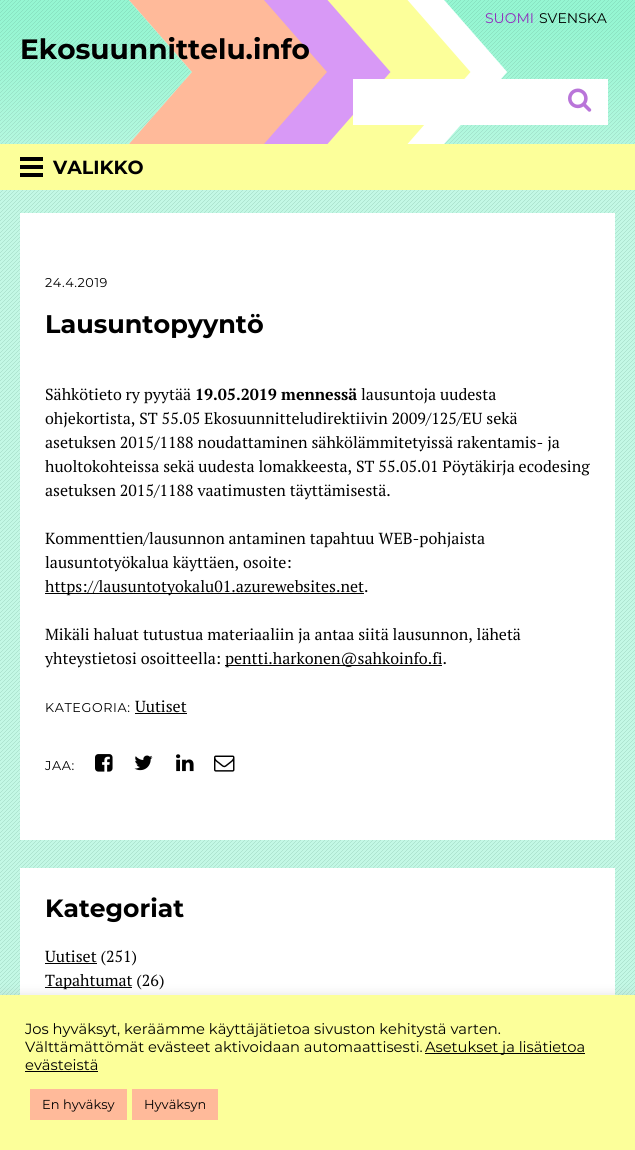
import math
import cairo

surface = cairo.ImageSurface(cairo.Format.RGB24, 635, 1150)
ctx = cairo.Context(surface)
options = cairo.FontOptions()
options.set_hint_metrics(cairo.HintMetrics.OFF)
options.set_hint_style(cairo.HintStyle.NONE)
ctx.set_font_options(options)
ctx.set_miter_limit(4)


def ink(r, g, b):
    ctx.set_source_rgb(r / 255, g / 255, b / 255)


def write(x, y, s, family, size, color, bold=False, italic=False):
    ctx.select_font_face(family, cairo.FontSlant.ITALIC if italic else cairo.FontSlant.NORMAL, cairo.FontWeight.BOLD if bold else cairo.FontWeight.NORMAL)
    ctx.set_font_size(size)
    ink(*color)
    ctx.move_to(x, y)
    ctx.show_text(s)


def write_spaced(x, y, s, letter, word):
    ctx.move_to(x, y)
    for ch in s:
        ctx.show_text(ch)
        ctx.rel_move_to(letter + word * (ch == ' '), 0)


def block(x, y, w, h, *color):
    ink(*color)
    ctx.rectangle(x, y, w, h)
    ctx.fill()


def round_path(x, y, w, h, r):
    ctx.new_sub_path()
    for i, (u, v) in enumerate([(x + w - r, y + h - r), (x + r, y + h - r), (x + r, y + r), (x + w - r, y + r)]):
        ctx.arc(u, v, r, i * math.pi / 2, (i + 1) * math.pi / 2)
    ctx.close_path()


def blur_box(x, y, w, h, r, blur, alpha):
    ctx.push_group_with_content(cairo.Content.ALPHA)
    ctx.set_operator(cairo.Operator.SOURCE)
    for i in range(15, -16, -2):
        e = blur * i / 6
        if min(w, h) + 2 * e > 0:
            ctx.set_source_rgba(0, 0, 0, alpha * math.erfc((i - 1) / 8.5) / 2)
            round_path(x - e, y - e, w + 2 * e, h + 2 * e, max(0, min(r + e + blur * .6, min(w, h) / 2 + e)))
            ctx.fill()
    ctx.mask(ctx.pop_group())


def paste(path, x, y, w, h):
    ctx.save()
    ctx.set_source_surface(cairo.ImageSurface.create_from_png(path), x, y)
    ctx.rectangle(x, y, w, h)
    ctx.fill()
    ctx.restore()


s1 = dict(family="Montserrat", size=14, color=(144, 47, 190))
s2 = dict(family="Montserrat", size=14, color=(0, 0, 0))
s3 = dict(family="Montserrat", size=28, color=(0, 0, 0), bold=True)
s4 = dict(family="Montserrat", size=19, color=(0, 0, 0), bold=True)
s5 = dict(family="Montserrat", size=25.5, color=(0, 0, 0), bold=True)
s6 = dict(family="PT Serif", size=16, color=(0, 0, 0))
s7 = dict(family="PT Serif", size=16, color=(0, 0, 0), bold=True)
s8 = dict(family="Montserrat", size=25, color=(0, 0, 0), bold=True)
s9 = dict(family="Montserrat", size=14.7, color=(0, 0, 0))
s10 = dict(family="Montserrat", size=13, color=(0, 0, 0))

ink(255, 255, 255)
ctx.paint()
paste("pic1.png", 0, 190, 635, 805)
paste("pic2.png", 0, 0, 635, 144)
paste("pic3.png", 129, 0, 378, 144)
write(485, 23, "SUOMI", **s1)
write(539, 23, "SVENSKA", **s2)
block(353, 79, 255, 46, 255, 255, 255)
paste("pic4.png", 568, 88, 24, 24)
write(20, 59, "Ekosuunnittelu.info", **s3)
block(0, 144, 635, 46, 252, 255, 154)
block(20, 157, 23, 4, 0, 0, 0)
block(20, 173, 23, 4, 0, 0, 0)
write(53, 174, "VALIKKO", **s4)
block(20, 165, 23, 4, 0, 0, 0)
block(20, 213, 595, 627, 255, 255, 255)
ctx.select_font_face("Montserrat")
ctx.set_font_size(12.75)
ink(0, 0, 0)
write_spaced(45, 287, "24.4.2019", 0.6, 0)
write(45, 333, "Lausuntopyyntö", **s5)
write(45, 400, "Sähkötieto ry pyytää", **s6)
write(195, 400, "19.05.2019 mennessä", **s7)
write(361, 400, "lausuntoja uudesta", **s6)
write(45, 424, "ohjekortista, ST 55.05 Ekosuunnitteludirektiivin 2009/125/EU sekä", **s6)
write(45, 448, "asetuksen 2015/1188 noudattaminen sähkölämmitetyissä rakentamis- ja", **s6)
write(45, 472, "huoltokohteissa sekä uudesta lomakkeesta, ST 55.05.01 Pöytäkirja ecodesing", **s6)
write(45, 496, "asetuksen 2015/1188 vaatimusten täyttämisestä.", **s6)
write(45, 544, "Kommenttien/lausunnon antaminen tapahtuu WEB-pohjaista", **s6)
write(45, 568, "lausuntotyökalua käyttäen, osoite:", **s6)
block(45, 593, 319, 1, 0, 0, 0)
write(45, 592, "https://lausuntotyokalu01.azurewebsites.net.", **s6)
write(45, 640, "Mikäli haluat tutustua materiaaliin ja antaa siitä lausunnon, lähetä", **s6)
write(45, 664, "yhteystietosi osoitteella:", **s6)
block(225, 665, 217, 1, 0, 0, 0)
write(225, 664, "pentti.harkonen@sahkoinfo.fi.", **s6)
ctx.select_font_face("Montserrat")
ctx.set_font_size(12.75)
write_spaced(45, 712, "KATEGORIA:", 0.6, 0)
write(135, 712, "Uutiset", **s6)
block(135, 713, 52, 1, 0, 0, 0)
ctx.select_font_face("Montserrat")
ctx.set_font_size(12.75)
write_spaced(45, 770, "JAA:", 0.6, 0)
paste("pic5.png", 95, 754, 18, 18)
paste("pic6.png", 134, 755, 19, 16)
paste("pic7.png", 176, 754, 18, 18)
paste("pic8.png", 214, 755, 21, 17)
block(20, 868, 595, 127, 255, 255, 255)
write(45, 917, "Kategoriat", **s8)
block(45, 963, 52, 1, 0, 0, 0)
write(45, 962, "Uutiset (251)", **s6)
block(45, 987, 87, 1, 0, 0, 0)
write(45, 986, "Tapahtumat (26)", **s6)
ink(172, 171, 171)
blur_box(0, 994, 635, 155, 0, 5, 0.3)
block(0, 995, 635, 155, 252, 255, 154)
write(25, 1034, "Jos hyväksyt, keräämme käyttäjätietoa sivuston kehitystä varten.", **s9)
write(25, 1052, "Välttämättömät evästeet aktivoidaan automaattisesti.", **s9)
block(425, 1053, 160, 1, 0, 0, 0)
write(425, 1052, "Asetukset ja lisätietoa", **s9)
write(25, 1070, "evästeistä", **s9)
block(25, 1071, 73, 1, 0, 0, 0)
block(30, 1089, 97, 31, 255, 186, 154)
write(42, 1109, "En hyväksy", **s10)
block(132, 1089, 86, 31, 255, 186, 154)
write(144, 1109, "Hyväksyn", **s10)
surface.write_to_png("screenshot.png")
